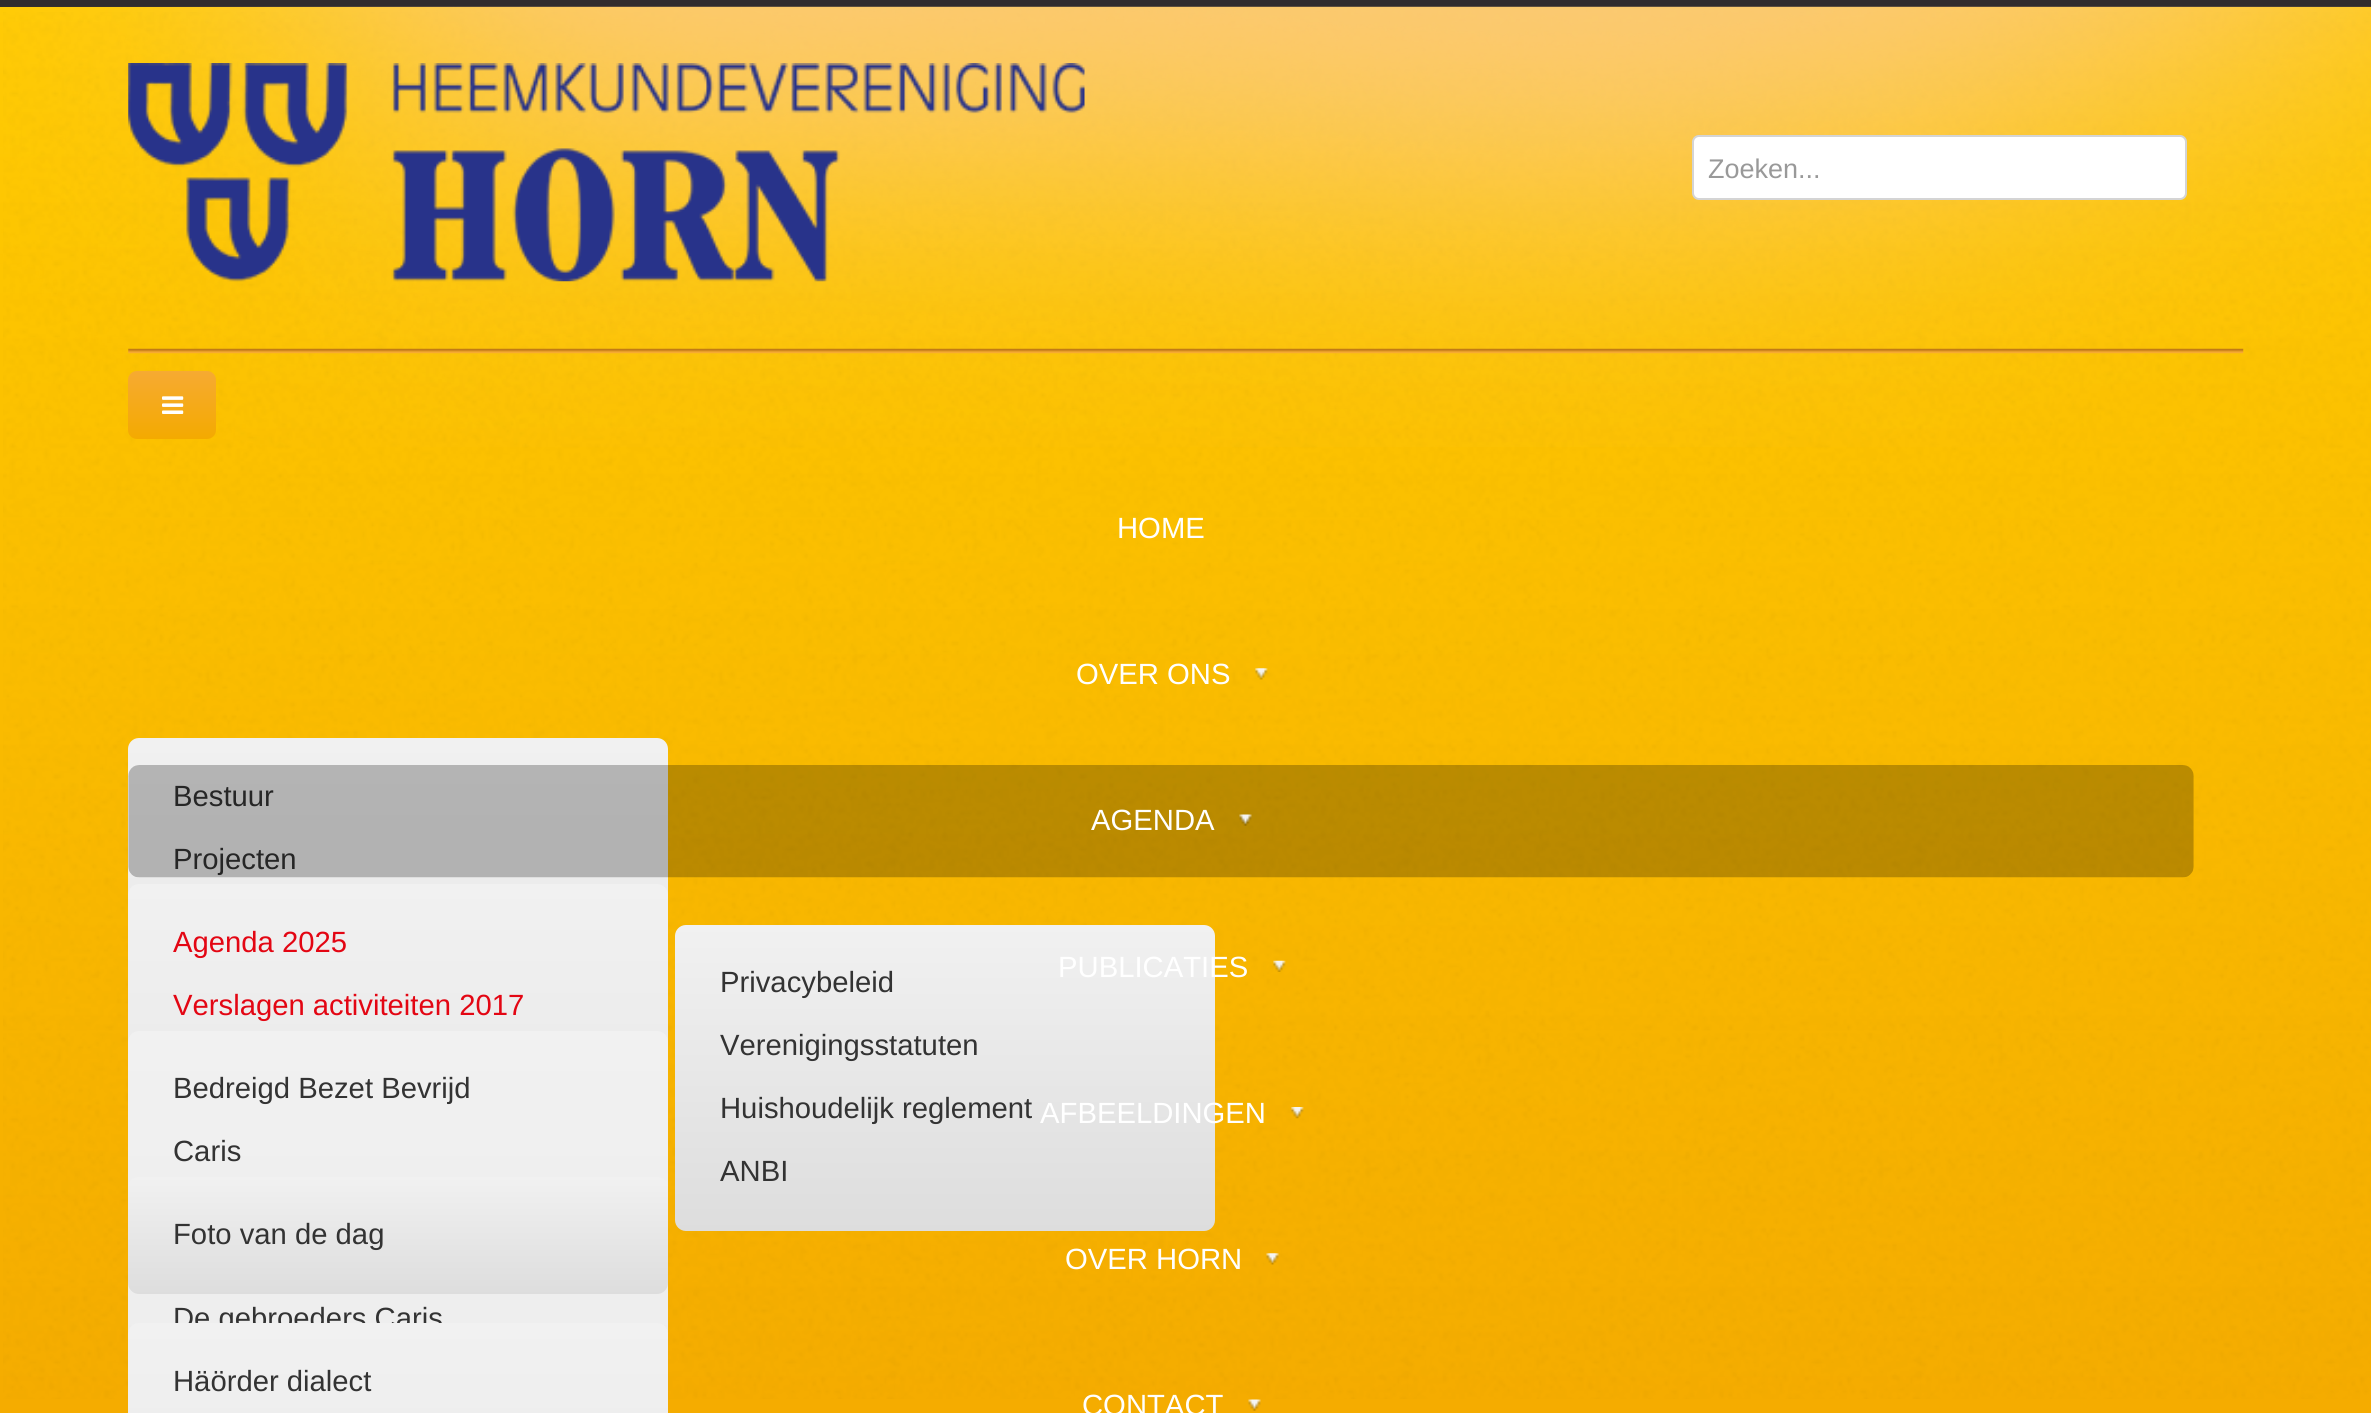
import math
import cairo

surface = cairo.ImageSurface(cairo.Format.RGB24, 2371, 1413)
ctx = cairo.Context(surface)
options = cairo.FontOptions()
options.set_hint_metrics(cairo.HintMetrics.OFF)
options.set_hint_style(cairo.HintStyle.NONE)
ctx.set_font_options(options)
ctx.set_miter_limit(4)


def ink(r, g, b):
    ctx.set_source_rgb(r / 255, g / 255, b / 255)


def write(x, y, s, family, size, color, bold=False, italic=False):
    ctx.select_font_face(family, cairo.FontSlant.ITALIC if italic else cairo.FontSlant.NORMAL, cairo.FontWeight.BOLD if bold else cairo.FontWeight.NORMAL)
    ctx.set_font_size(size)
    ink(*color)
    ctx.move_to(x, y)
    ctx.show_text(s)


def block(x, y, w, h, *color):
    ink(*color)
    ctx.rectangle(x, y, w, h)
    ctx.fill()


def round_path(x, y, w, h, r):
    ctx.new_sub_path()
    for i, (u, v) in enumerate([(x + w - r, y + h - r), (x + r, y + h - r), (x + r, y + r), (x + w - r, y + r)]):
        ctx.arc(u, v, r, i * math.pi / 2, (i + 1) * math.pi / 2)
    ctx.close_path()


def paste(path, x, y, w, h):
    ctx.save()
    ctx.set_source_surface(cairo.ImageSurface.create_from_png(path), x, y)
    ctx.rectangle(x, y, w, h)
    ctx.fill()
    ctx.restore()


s1 = dict(family="Liberation Sans", size=27, color=(153, 153, 153))
s2 = dict(family="Liberation Sans", size=29.25, color=(255, 255, 255))
s3 = dict(family="Liberation Sans", size=29.25, color=(51, 51, 51))
s4 = dict(family="Liberation Sans", size=29.25, color=(227, 6, 19))

ink(255, 255, 255)
ctx.paint()
gradient = cairo.LinearGradient(1186, 0, 1186, 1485)
gradient.add_color_stop_rgba(0, 1, 0.796, 0, 1)
gradient.add_color_stop_rgba(1, 0.957, 0.667, 0, 1)
ctx.set_source(gradient)
ctx.rectangle(0, 7, 2371, 1406)
ctx.fill()
paste("pic1.png", 3, 12, 2368, 1387)
block(0, 0, 2371, 7, 49, 44, 45)
paste("pic2.png", 0, 6, 2371, 441)
paste("pic3.png", 128, 63, 957, 219)
ink(255, 255, 255)
round_path(1693, 136, 493, 63, 6)
ctx.fill_preserve()
ink(212, 212, 212)
ctx.stroke()
write(1708, 178, "Zoeken...", **s1)
paste("pic4.png", 128, 348, 2116, 6)
gradient = cairo.LinearGradient(172, 371, 172, 439)
gradient.add_color_stop_rgba(0, 0.965, 0.667, 0.196, 1)
gradient.add_color_stop_rgba(1, 0.957, 0.667, 0, 1)
ctx.set_source(gradient)
round_path(128, 371, 88, 68, 9)
ctx.fill()
paste("pic5.png", 162, 396, 22, 18)
write(1117, 538, "HOME", **s2)
write(1076, 684, "OVER ONS", **s2)
paste("pic6.png", 1255, 668, 13, 12)
gradient = cairo.LinearGradient(398, 738, 398, 1359)
gradient.add_color_stop_rgba(0, 0.945, 0.945, 0.945, 1)
gradient.add_color_stop_rgba(1, 0.867, 0.867, 0.867, 1)
ctx.set_source(gradient)
round_path(128, 738, 540, 621, 11)
ctx.fill()
write(173, 806, "Bestuur", **s3)
write(173, 869, "Projecten", **s3)
gradient = cairo.LinearGradient(945, 925, 945, 1231)
gradient.add_color_stop_rgba(0, 0.945, 0.945, 0.945, 1)
gradient.add_color_stop_rgba(1, 0.867, 0.867, 0.867, 1)
ctx.set_source(gradient)
round_path(675, 925, 540, 306, 11)
ctx.fill()
write(720, 992, "Privacybeleid", **s3)
write(720, 1055, "Verenigingsstatuten", **s3)
write(720, 1118, "Huishoudelijk reglement", **s3)
write(720, 1181, "ANBI", **s3)
paste("pic7.png", 128, 765, 2066, 113)
write(1091, 830, "AGENDA", **s2)
paste("pic8.png", 1239, 814, 13, 12)
gradient = cairo.LinearGradient(398, 884, 398, 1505)
gradient.add_color_stop_rgba(0, 0.945, 0.945, 0.945, 1)
gradient.add_color_stop_rgba(1, 0.867, 0.867, 0.867, 1)
ctx.set_source(gradient)
round_path(128, 884, 540, 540, 11)
ctx.fill()
write(173, 952, "Agenda 2025", **s4)
write(173, 1015, "Verslagen activiteiten 2017", **s4)
write(1058, 977, "PUBLICATIES", **s2)
paste("pic9.png", 1273, 960, 13, 12)
gradient = cairo.LinearGradient(398, 1031, 398, 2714)
gradient.add_color_stop_rgba(0, 0.945, 0.945, 0.945, 1)
gradient.add_color_stop_rgba(1, 0.867, 0.867, 0.867, 1)
ctx.set_source(gradient)
round_path(128, 1031, 540, 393, 11)
ctx.fill()
write(173, 1098, "Bedreigd Bezet Bevrijd", **s3)
write(173, 1161, "Caris", **s3)
write(173, 1328, "De gebroeders Caris", **s3)
write(1040, 1123, "AFBEELDINGEN", **s2)
paste("pic10.png", 1291, 1107, 13, 12)
gradient = cairo.LinearGradient(398, 1177, 398, 1294)
gradient.add_color_stop_rgba(0, 0.945, 0.945, 0.945, 1)
gradient.add_color_stop_rgba(1, 0.867, 0.867, 0.867, 1)
ctx.set_source(gradient)
round_path(128, 1177, 540, 117, 11)
ctx.fill()
write(173, 1244, "Foto van de dag", **s3)
write(1065, 1269, "OVER HORN", **s2)
paste("pic11.png", 1266, 1253, 13, 12)
gradient = cairo.LinearGradient(398, 1323, 398, 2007)
gradient.add_color_stop_rgba(0, 0.945, 0.945, 0.945, 1)
gradient.add_color_stop_rgba(1, 0.867, 0.867, 0.867, 1)
ctx.set_source(gradient)
round_path(128, 1323, 540, 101, 11)
ctx.fill()
write(173, 1391, "Häörder dialect", **s3)
write(1082, 1415, "CONTACT", **s2)
paste("pic12.png", 1248, 1399, 13, 12)
surface.write_to_png("screenshot.png")
